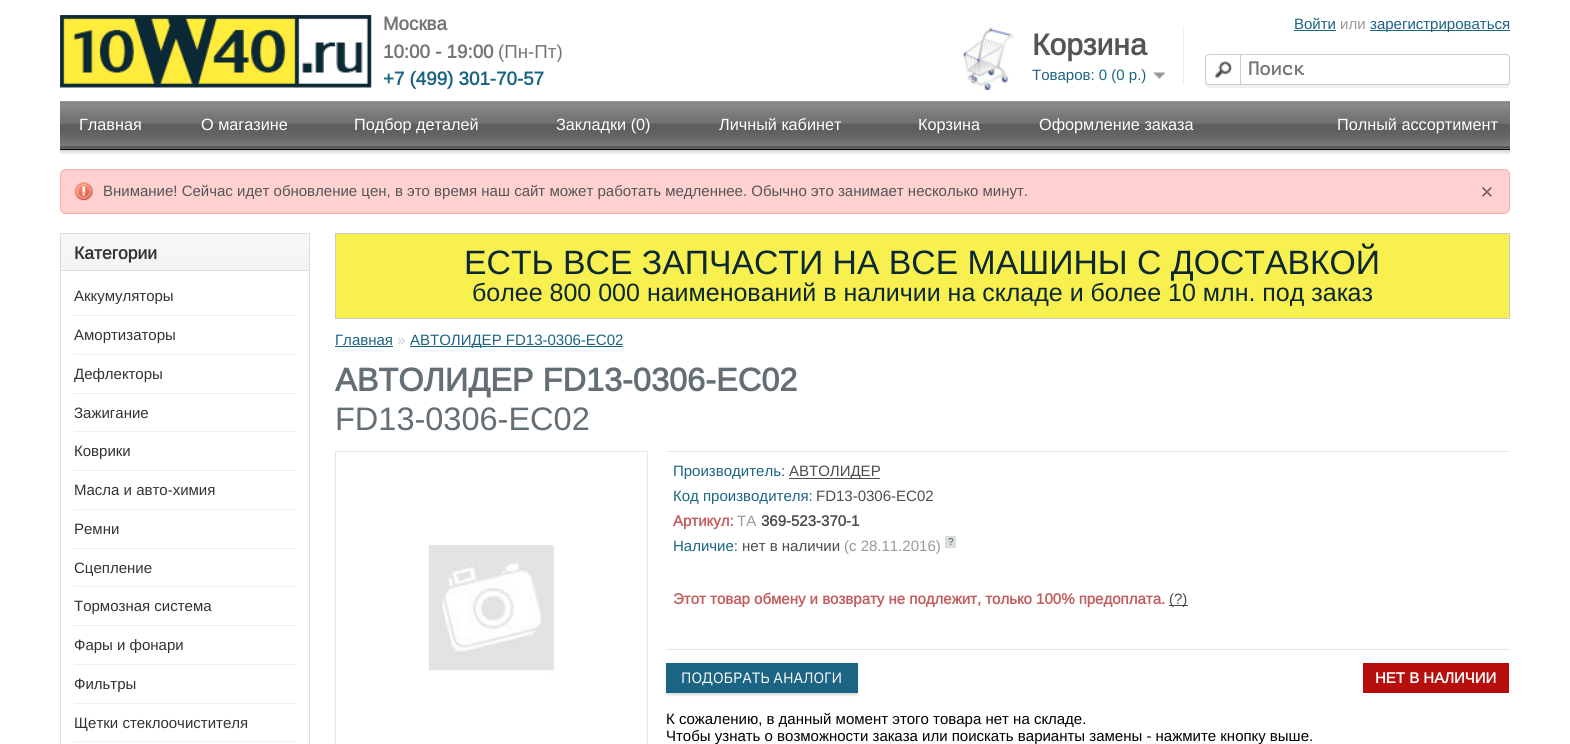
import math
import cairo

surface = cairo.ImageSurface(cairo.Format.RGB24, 1570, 744)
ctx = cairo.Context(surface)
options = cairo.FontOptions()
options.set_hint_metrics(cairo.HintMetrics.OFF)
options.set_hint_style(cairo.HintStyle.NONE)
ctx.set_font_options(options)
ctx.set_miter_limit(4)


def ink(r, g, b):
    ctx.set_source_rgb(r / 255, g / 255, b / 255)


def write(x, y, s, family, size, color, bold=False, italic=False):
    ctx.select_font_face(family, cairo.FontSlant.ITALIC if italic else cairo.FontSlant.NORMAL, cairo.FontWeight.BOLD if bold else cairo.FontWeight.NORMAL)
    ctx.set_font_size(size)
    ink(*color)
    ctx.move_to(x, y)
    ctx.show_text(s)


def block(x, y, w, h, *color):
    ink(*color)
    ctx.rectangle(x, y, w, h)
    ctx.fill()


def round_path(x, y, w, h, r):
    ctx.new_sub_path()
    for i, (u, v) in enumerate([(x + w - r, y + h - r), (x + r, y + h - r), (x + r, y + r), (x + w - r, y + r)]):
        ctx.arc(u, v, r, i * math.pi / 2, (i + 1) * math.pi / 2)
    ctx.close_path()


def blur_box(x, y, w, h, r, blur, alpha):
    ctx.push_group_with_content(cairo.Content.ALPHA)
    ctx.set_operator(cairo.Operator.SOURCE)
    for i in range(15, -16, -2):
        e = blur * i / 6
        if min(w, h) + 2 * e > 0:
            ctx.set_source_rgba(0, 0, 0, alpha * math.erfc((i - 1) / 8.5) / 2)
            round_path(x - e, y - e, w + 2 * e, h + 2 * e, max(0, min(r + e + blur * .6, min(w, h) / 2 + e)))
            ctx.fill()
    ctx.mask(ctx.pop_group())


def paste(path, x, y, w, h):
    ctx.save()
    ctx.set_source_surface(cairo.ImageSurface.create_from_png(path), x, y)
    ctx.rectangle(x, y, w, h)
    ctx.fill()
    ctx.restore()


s1 = dict(family="Arimo", size=18.75, color=(117, 117, 117), bold=True)
s2 = dict(family="Arimo", size=15, color=(27, 100, 131))
s3 = dict(family="Arimo", size=15, color=(153, 153, 153))
s4 = dict(family="Arimo", size=18.75, color=(117, 117, 117))
s5 = dict(family="Arimo", size=30, color=(85, 85, 85), bold=True)
s6 = dict(family="PT Mono", size=18.75, color=(117, 117, 117), bold=True)
s7 = dict(family="Arimo", size=18.75, color=(27, 100, 131), bold=True)
s8 = dict(family="Arimo", size=16.25, color=(255, 255, 255))
s9 = dict(family="Arimo", size=15, color=(85, 85, 85))
s10 = dict(family="Arimo", size=17.5, color=(51, 51, 51), bold=True)
s11 = dict(family="Arimo", size=15, color=(51, 51, 51))
s12 = dict(family="Arimo", size=33.75, color=(11, 40, 52))
s13 = dict(family="Arimo", size=25, color=(11, 40, 52))
s14 = dict(family="Arimo", size=15, color=(204, 204, 204))
s15 = dict(family="Arimo", size=32.5, color=(99, 110, 117), bold=True)
s16 = dict(family="Arimo", size=32.5, color=(99, 110, 117))
s17 = dict(family="Arimo", size=15, color=(77, 77, 77))
s18 = dict(family="Arimo", size=15, color=(194, 94, 94), bold=True)
s19 = dict(family="Arimo", size=15, color=(77, 77, 77), bold=True)
s20 = dict(family="Arimo", size=10, color=(85, 85, 85))
s21 = dict(family="IBM Plex Sans", size=15, color=(255, 255, 255))
s22 = dict(family="Arimo", size=15, color=(255, 255, 255), bold=True)
s23 = dict(family="Arimo", size=15, color=(0, 0, 0))

ink(255, 255, 255)
ctx.paint()
paste("pic1.png", 60, 15, 312, 73)
write(383, 30, "Москва", **s1)
write(1294, 29, "Войти", **s2)
block(1294, 30, 42, 1, 27, 100, 131)
write(1340, 29, "или", **s3)
block(1370, 30, 140, 1, 27, 100, 131)
write(1370, 29, "зарегистрироваться", **s2)
write(383, 58, "10:00 - 19:00", **s1)
write(498, 58, "(Пн-Пт)", **s4)
paste("pic2.png", 963, 27, 51, 63)
block(1183, 26, 1, 58, 238, 238, 238)
write(1032, 55, "Корзина", **s5)
write(1032, 80, "Товаров: 0 (0 р.)", **s2)
paste("pic3.png", 1153, 72, 12, 7)
ink(240, 240, 240)
ctx.new_path()
ctx.move_to(1205, 81)
ctx.line_to(1205, 84)
ctx.curve_to(1205, 86, 1207, 88, 1209, 88)
ctx.line_to(1506, 88)
ctx.curve_to(1508, 88, 1510, 86, 1510, 84)
ctx.line_to(1510, 81)
ctx.curve_to(1510, 83, 1508, 85, 1506, 85)
ctx.line_to(1209, 85)
ctx.curve_to(1207, 85, 1205, 83, 1205, 81)
ctx.close_path()
ctx.fill()
ink(255, 255, 255)
round_path(1205.5, 54.5, 304, 30, 3.5)
ctx.fill_preserve()
ink(204, 204, 204)
ctx.set_line_width(1)
ctx.stroke()
paste("pic4.png", 1215, 61, 17, 17)
block(1240, 54, 1, 30, 204, 204, 204)
write(1248, 75, "Поиск", **s6)
write(383, 85, "+7 (499) 301-70-57", **s7)
ctx.save()
ctx.rectangle(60, 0, 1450, 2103)
ctx.clip()
ink(221, 221, 221)
blur_box(60, 104, 1463, 49, 0, 1, 1)
ctx.restore()
paste("pic5.png", 60, 101, 1450, 48)
block(60, 149, 1450, 1, 0, 0, 0)
write(79, 130, "Главная", **s8)
write(201, 130, "О магазине", **s8)
write(354, 130, "Подбор деталей", **s8)
write(556, 130, "Закладки (0)", **s8)
write(719, 130, "Личный кабинет", **s8)
write(918, 130, "Корзина", **s8)
write(1039, 130, "Оформление заказа", **s8)
write(1337, 130, "Полный ассортимент", **s8)
ink(255, 209, 209)
round_path(60, 169, 1450, 45, 6)
ctx.fill()
paste("pic6.png", 74, 182, 19, 19)
round_path(60.5, 169.5, 1449, 44, 5.5)
ink(248, 172, 172)
ctx.stroke()
write(103, 196, "Внимание! Сейчас идет обновление цен, в это время наш сайт может работать медленнее. Обычно это занимает несколько минут.", **s9)
paste("pic7.png", 1482, 187, 10, 10)
paste("pic8.png", 61, 234, 248, 36)
ctx.rectangle(60.5, 233.5, 249, 37)
ink(219, 222, 225)
ctx.stroke()
write(74, 259, "Категории", **s10)
block(309, 271, 1, 473, 219, 222, 225)
block(60, 271, 1, 473, 219, 222, 225)
write(74, 301, "Аккумуляторы", **s11)
block(74, 315, 222, 1, 238, 238, 238)
write(74, 340, "Амортизаторы", **s11)
block(74, 354, 222, 1, 238, 238, 238)
write(74, 379, "Дефлекторы", **s11)
block(74, 393, 222, 1, 238, 238, 238)
write(74, 418, "Зажигание", **s11)
block(74, 431, 222, 1, 238, 238, 238)
write(74, 456, "Коврики", **s11)
block(74, 470, 222, 1, 238, 238, 238)
write(74, 495, "Масла и авто-химия", **s11)
block(74, 509, 222, 1, 238, 238, 238)
write(74, 534, "Ремни", **s11)
block(74, 548, 222, 1, 238, 238, 238)
write(74, 573, "Сцепление", **s11)
block(74, 586, 222, 1, 238, 238, 238)
write(74, 611, "Тормозная система", **s11)
block(74, 625, 222, 1, 238, 238, 238)
write(74, 650, "Фары и фонари", **s11)
block(74, 664, 222, 1, 238, 238, 238)
write(74, 689, "Фильтры", **s11)
block(74, 703, 222, 1, 238, 238, 238)
write(74, 728, "Щетки стеклоочистителя", **s11)
block(74, 741, 222, 1, 238, 238, 238)
ink(247, 240, 78)
ctx.rectangle(335.5, 233.5, 1174, 85)
ctx.fill_preserve()
ink(204, 204, 204)
ctx.stroke()
write(464, 274, "ЕСТЬ ВСЕ ЗАПЧАСТИ НА ВСЕ МАШИНЫ С ДОСТАВКОЙ", **s12)
write(472, 301, "более 800 000 наименований в наличии на складе и более 10 млн. под заказ", **s13)
write(335, 345, "Главная", **s2)
block(335, 346, 58, 1, 27, 100, 131)
write(397, 345, "»", **s14)
block(410, 346, 213, 1, 27, 100, 131)
write(410, 345, "АВТОЛИДЕР FD13-0306-EC02", **s2)
write(335, 391, "АВТОЛИДЕР FD13-0306-EC02", **s15)
write(335, 430, "FD13-0306-EC02", **s16)
ctx.rectangle(335.5, 451.5, 312, 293)
ink(231, 231, 231)
ctx.stroke()
paste("pic9.png", 428, 545, 129, 130)
block(666, 451, 844, 1, 231, 231, 231)
block(666, 649, 844, 1, 231, 231, 231)
write(673, 476, "Производитель:", **s2)
block(789, 478, 91, 1, 77, 77, 77)
write(789, 476, "АВТОЛИДЕР", **s17)
write(673, 501, "Код производителя:", **s2)
write(816, 501, "FD13-0306-EC02", **s17)
write(673, 526, "Артикул:", **s18)
write(737, 526, "TA", **s3)
write(761, 526, "369-523-370-1", **s19)
write(673, 551, "Наличие:", **s2)
write(742, 551, "нет в наличии", **s17)
write(844, 551, "(c 28.11.2016)", **s3)
block(945, 536, 11, 12, 219, 222, 225)
write(948, 545, "?", **s20)
write(673, 604, "Этот товар обмену и возврату не подлежит, только 100% предоплата.", **s18)
block(1169, 605, 19, 1, 77, 77, 77)
write(1169, 604, "(?)", **s17)
ink(221, 221, 221)
blur_box(666, 665, 192, 30, 0, 1, 1)
block(666, 663, 192, 30, 27, 100, 131)
write(681, 683, "ПОДОБРАТЬ АНАЛОГИ", **s21)
block(1363, 663, 146, 30, 183, 14, 14)
write(1375, 683, "НЕТ В НАЛИЧИИ", **s22)
write(666, 724, "К сожалению, в данный момент этого товара нет на складе.", **s23)
write(666, 741, "Чтобы узнать о возможности заказа или поискать варианты замены - нажмите кнопку выше.", **s23)
surface.write_to_png("screenshot.png")
